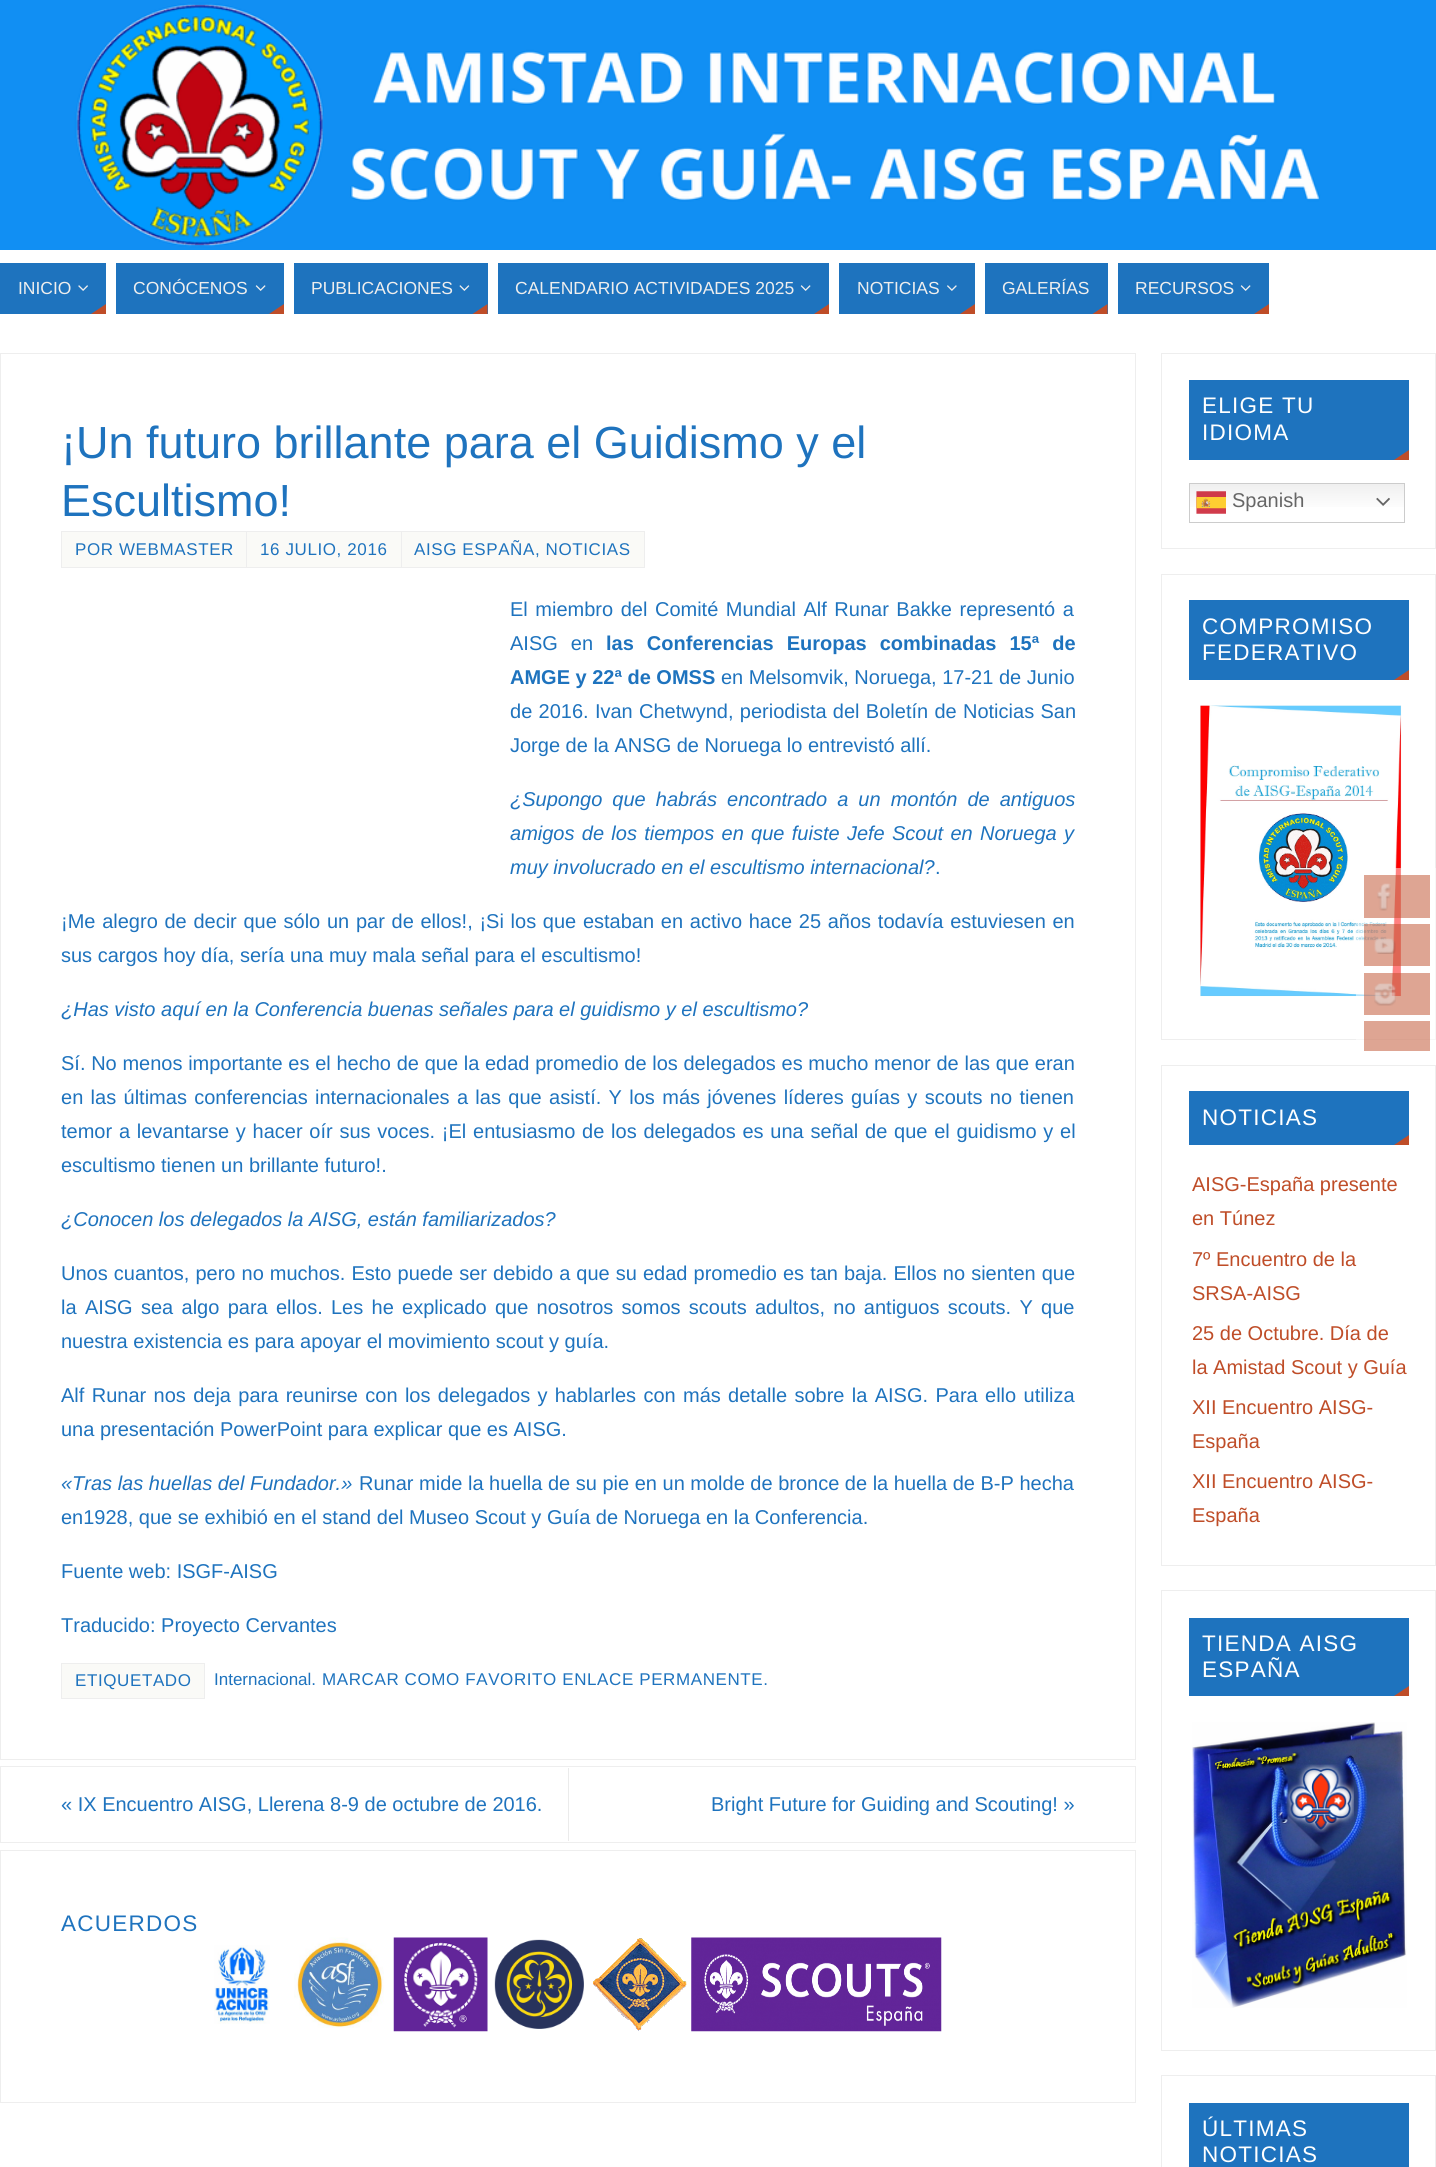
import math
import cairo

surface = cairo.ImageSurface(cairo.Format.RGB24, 1436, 2167)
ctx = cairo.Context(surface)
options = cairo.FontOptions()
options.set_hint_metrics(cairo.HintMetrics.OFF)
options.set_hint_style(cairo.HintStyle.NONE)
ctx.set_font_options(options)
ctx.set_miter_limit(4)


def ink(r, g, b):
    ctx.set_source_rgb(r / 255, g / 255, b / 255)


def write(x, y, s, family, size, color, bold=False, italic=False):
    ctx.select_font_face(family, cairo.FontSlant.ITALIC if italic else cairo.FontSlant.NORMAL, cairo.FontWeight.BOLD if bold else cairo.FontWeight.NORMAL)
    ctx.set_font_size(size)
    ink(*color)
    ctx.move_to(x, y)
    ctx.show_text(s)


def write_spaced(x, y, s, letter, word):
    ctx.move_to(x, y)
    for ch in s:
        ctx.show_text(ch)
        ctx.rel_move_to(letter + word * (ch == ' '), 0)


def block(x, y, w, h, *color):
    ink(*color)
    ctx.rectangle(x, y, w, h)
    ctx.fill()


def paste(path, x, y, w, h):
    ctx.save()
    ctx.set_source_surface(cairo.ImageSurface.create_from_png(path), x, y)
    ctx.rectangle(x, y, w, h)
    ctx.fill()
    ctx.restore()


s1 = dict(family="Liberation Sans", size=17.5, color=(238, 238, 238))
s2 = dict(family="Liberation Sans", size=45, color=(30, 115, 190))
s3 = dict(family="Liberation Sans", size=20, color=(30, 115, 190), bold=True)
s4 = dict(family="Liberation Sans", size=20, color=(30, 115, 190))
s5 = dict(family="Liberation Sans", size=20, color=(30, 115, 190), italic=True)
s6 = dict(family="Liberation Sans", size=17, color=(30, 115, 190))
s7 = dict(family="Liberation Sans", size=20, color=(102, 102, 102))
s8 = dict(family="Liberation Sans", size=20, color=(191, 77, 40))

ink(255, 255, 255)
ctx.paint()
paste("pic1.png", 0, 0, 1436, 250)
block(0, 263, 106, 51, 30, 115, 190)
write(18, 294, "INICIO", **s1)
paste("pic2.png", 78, 285, 10, 6)
ink(191, 77, 40)
ctx.new_path()
ctx.move_to(106, 314)
ctx.line_to(91, 314)
ctx.line_to(106, 304)
ctx.close_path()
ctx.fill()
block(116, 263, 168, 51, 30, 115, 190)
write(133, 294, "CONÓCENOS", **s1)
paste("pic3.png", 255, 285, 11, 6)
ink(191, 77, 40)
ctx.new_path()
ctx.move_to(284, 314)
ctx.line_to(269, 314)
ctx.line_to(284, 304)
ctx.close_path()
ctx.fill()
block(294, 263, 194, 51, 30, 115, 190)
write(311, 294, "PUBLICACIONES", **s1)
paste("pic4.png", 459, 285, 11, 6)
ink(191, 77, 40)
ctx.new_path()
ctx.move_to(487.5, 314)
ctx.line_to(472.5, 314)
ctx.line_to(487.5, 304)
ctx.close_path()
ctx.fill()
block(498, 263, 331, 51, 30, 115, 190)
write(515, 294, "CALENDARIO ACTIVIDADES 2025", **s1)
paste("pic3.png", 800, 285, 11, 6)
ink(191, 77, 40)
ctx.new_path()
ctx.move_to(829, 314)
ctx.line_to(814, 314)
ctx.line_to(829, 304)
ctx.close_path()
ctx.fill()
block(839, 263, 136, 51, 30, 115, 190)
write(857, 294, "NOTICIAS", **s1)
paste("pic5.png", 947, 285, 10, 6)
ink(191, 77, 40)
ctx.new_path()
ctx.move_to(975, 314)
ctx.line_to(960, 314)
ctx.line_to(975, 304)
ctx.close_path()
ctx.fill()
block(985, 263, 123, 51, 30, 115, 190)
write(1002, 294, "GALERÍAS", **s1)
ink(191, 77, 40)
ctx.new_path()
ctx.move_to(1107.5, 314)
ctx.line_to(1092.5, 314)
ctx.line_to(1107.5, 304)
ctx.close_path()
ctx.fill()
block(1118, 263, 151, 51, 30, 115, 190)
write(1135, 294, "RECURSOS", **s1)
paste("pic3.png", 1240, 285, 11, 6)
ink(191, 77, 40)
ctx.new_path()
ctx.move_to(1269, 314)
ctx.line_to(1254, 314)
ctx.line_to(1269, 304)
ctx.close_path()
ctx.fill()
ctx.rectangle(0.5, 353.5, 1135, 1406)
ink(238, 238, 238)
ctx.set_line_width(1)
ctx.stroke()
write(61, 458, "¡Un futuro brillante para el Guidismo y el", **s2)
write(61, 516, "Escultismo!", **s2)
block(62, 532, 184, 35, 250, 250, 247)
ctx.rectangle(61.5, 531.5, 186, 36)
ink(238, 238, 238)
ctx.stroke()
ctx.set_font_size(17)
ink(30, 115, 190)
write_spaced(75, 555, "POR WEBMASTER", 0.6, 0)
block(247, 532, 154, 35, 250, 250, 247)
ctx.rectangle(246.5, 531.5, 156, 36)
ink(238, 238, 238)
ctx.stroke()
ink(30, 115, 190)
write_spaced(260, 555, "16 JULIO, 2016", 0.6, 0)
ink(250, 250, 247)
ctx.rectangle(401.5, 531.5, 243, 36)
ctx.fill_preserve()
ink(238, 238, 238)
ctx.stroke()
ink(30, 115, 190)
write_spaced(414, 555, "AISG ESPAÑA, NOTICIAS", 0.6, 0)
ctx.set_font_size(20)
write_spaced(510, 616, "El miembro del Comité Mundial Alf Runar Bakke representó a", 0, 2)
write_spaced(510, 650, "AISG en", 0, 7.5)
ctx.select_font_face("Liberation Sans", cairo.FontSlant.NORMAL, cairo.FontWeight.BOLD)
write_spaced(606, 650, "las Conferencias Europas combinadas 15ª de", 0, 7.5)
write(510, 684, "AMGE y 22ª de OMSS", **s3)
write(721, 684, "en Melsomvik, Noruega, 17-21 de Junio", **s4)
write_spaced(510, 718, "de 2016. Ivan Chetwynd, periodista del Boletín de Noticias San", 0, 0.75)
write(510, 752, "Jorge de la ANSG de Noruega lo entrevistó allí.", **s4)
ctx.select_font_face("Liberation Sans", cairo.FontSlant.ITALIC)
write_spaced(510, 806, "¿Supongo que habrás encontrado a un montón de antiguos", 0, 4.5)
write_spaced(510, 840, "amigos de los tiempos en que fuiste Jefe Scout en Noruega y", 0, 1.75)
write(510, 874, "muy involucrado en el escultismo internacional?", **s5)
write(935, 874, ".", **s4)
write_spaced(61, 928, "¡Me alegro de decir que sólo un par de ellos!, ¡Si los que estaban en activo hace 25 años todavía estuviesen en", 0, 1.15)
write(61, 962, "sus cargos hoy día, sería una muy mala señal para el escultismo!", **s4)
write(61, 1016, "¿Has visto aquí en la Conferencia buenas señales para el guidismo y el escultismo?", **s5)
ctx.select_font_face("Liberation Sans")
write_spaced(61, 1070, "Sí. No menos importante es el hecho de que la edad promedio de los delegados es mucho menor de las que eran", 0, 0.15)
write_spaced(61, 1104, "en las últimas conferencias internacionales a las que asistí. Y los más jóvenes líderes guías y scouts no tienen", 0, 1.8)
write_spaced(61, 1138, "temor a levantarse y hacer oír sus voces. ¡El entusiasmo de los delegados es una señal de que el guidismo y el", 0, 1.2)
write(61, 1172, "escultismo tienen un brillante futuro!.", **s4)
write(61, 1226, "¿Conocen los delegados la AISG, están familiarizados?", **s5)
ctx.select_font_face("Liberation Sans")
write_spaced(61, 1280, "Unos cuantos, pero no muchos. Esto puede ser debido a que su edad promedio es tan baja. Ellos no sienten que", 0, 0.5)
write_spaced(61, 1314, "la AISG sea algo para ellos. Les he explicado que nosotros somos scouts adultos, no antiguos scouts. Y que", 0, 2.75)
write(61, 1348, "nuestra existencia es para apoyar el movimiento scout y guía.", **s4)
write_spaced(61, 1402, "Alf Runar nos deja para reunirse con los delegados y hablarles con más detalle sobre la AISG. Para ello utiliza", 0, 1.8)
write(61, 1436, "una presentación PowerPoint para explicar que es AISG.", **s4)
write(61, 1490, "«Tras las huellas del Fundador.»", **s5)
write(359, 1490, "Runar mide la huella de su pie en un molde de bronce de la huella de B-P hecha", **s4)
write(61, 1524, "en1928, que se exhibió en el stand del Museo Scout y Guía de Noruega en la Conferencia.", **s4)
write(61, 1578, "Fuente web: ISGF-AISG", **s4)
write(61, 1632, "Traducido: Proyecto Cervantes", **s4)
ink(250, 250, 247)
ctx.rectangle(61.5, 1663.5, 143, 35)
ctx.fill_preserve()
ink(238, 238, 238)
ctx.stroke()
ctx.set_font_size(17)
ink(30, 115, 190)
write_spaced(75, 1686, "ETIQUETADO", 0.6, 0)
write(214, 1685, "Internacional.", **s6)
write_spaced(322, 1685, "MARCAR COMO FAVORITO ENLACE PERMANENTE.", 0.6, 0)
ctx.rectangle(0.5, 1766.5, 1135, 76)
ink(238, 238, 238)
ctx.stroke()
block(568, 1768, 1, 73, 235, 235, 235)
write(61, 1811, "« IX Encuentro AISG, Llerena 8-9 de octubre de 2016.", **s4)
write(711, 1811, "Bright Future for Guiding and Scouting! »", **s4)
ctx.rectangle(0.5, 1850.5, 1135, 252)
ink(238, 238, 238)
ctx.stroke()
ctx.set_font_size(22.5)
ink(30, 115, 190)
write_spaced(61, 1931, "ACUERDOS", 1.25, 0)
paste("pic6.png", 214, 1945, 56, 79)
paste("pic7.png", 294, 1937, 90, 91)
paste("pic8.png", 393, 1937, 95, 95)
paste("pic9.png", 494, 1939, 90, 90)
paste("pic10.png", 593, 1938, 94, 93)
paste("pic11.png", 691, 1937, 251, 95)
ctx.rectangle(1161.5, 353.5, 274, 195)
ink(238, 238, 238)
ctx.stroke()
block(1189, 380, 220, 80, 30, 115, 190)
ink(255, 255, 255)
write_spaced(1202, 413, "ELIGE TU", 1.25, 0)
write_spaced(1202, 440, "IDIOMA", 1.25, 0)
ink(191, 77, 40)
ctx.new_path()
ctx.move_to(1409, 460)
ctx.line_to(1394, 460)
ctx.line_to(1409, 450)
ctx.close_path()
ctx.fill()
gradient = cairo.LinearGradient(1297, 483, 1297, 523)
gradient.add_color_stop_rgba(0, 0.937, 0.937, 0.937, 1)
gradient.add_color_stop_rgba(0.7, 1, 1, 1, 1)
ctx.set_source(gradient)
ctx.rectangle(1190, 484, 214, 23)
ctx.fill()
ctx.rectangle(1189.5, 483.5, 215, 39)
ink(204, 204, 204)
ctx.stroke()
paste("pic12.png", 1196, 491, 30, 23)
write(1232, 507, "Spanish", **s7)
paste("pic13.png", 1376, 497, 14, 9)
ctx.rectangle(1161.5, 574.5, 274, 465)
ink(238, 238, 238)
ctx.stroke()
block(1189, 600, 220, 80, 30, 115, 190)
ctx.set_font_size(22.5)
ink(255, 255, 255)
write_spaced(1202, 634, "COMPROMISO", 1.25, 0)
write_spaced(1202, 660, "FEDERATIVO", 1.25, 0)
ink(191, 77, 40)
ctx.new_path()
ctx.move_to(1409, 680)
ctx.line_to(1394, 680)
ctx.line_to(1409, 670)
ctx.close_path()
ctx.fill()
paste("pic14.png", 1200, 705, 202, 292)
ctx.rectangle(1161.5, 1065.5, 274, 500)
ink(238, 238, 238)
ctx.stroke()
block(1189, 1091, 220, 54, 30, 115, 190)
ink(255, 255, 255)
write_spaced(1202, 1125, "NOTICIAS", 1.25, 0)
ink(191, 77, 40)
ctx.new_path()
ctx.move_to(1409, 1145)
ctx.line_to(1394, 1145)
ctx.line_to(1409, 1135)
ctx.close_path()
ctx.fill()
write(1192, 1191, "AISG-España presente", **s8)
write(1192, 1225, "en Túnez", **s8)
write(1192, 1266, "7º Encuentro de la", **s8)
write(1192, 1300, "SRSA-AISG", **s8)
write(1192, 1340, "25 de Octubre. Día de", **s8)
write(1192, 1374, "la Amistad Scout y Guía", **s8)
write(1192, 1414, "XII Encuentro AISG-", **s8)
write(1192, 1448, "España", **s8)
write(1192, 1488, "XII Encuentro AISG-", **s8)
write(1192, 1522, "España", **s8)
ctx.rectangle(1161.5, 1590.5, 274, 460)
ink(238, 238, 238)
ctx.stroke()
block(1189, 1618, 220, 78, 30, 115, 190)
ctx.set_font_size(22.5)
ink(255, 255, 255)
write_spaced(1202, 1651, "TIENDA AISG", 1.25, 0)
write_spaced(1202, 1677, "ESPAÑA", 1.25, 0)
ink(191, 77, 40)
ctx.new_path()
ctx.move_to(1409, 1696)
ctx.line_to(1394, 1696)
ctx.line_to(1409, 1686)
ctx.close_path()
ctx.fill()
paste("pic15.png", 1192, 1722, 215, 286)
ctx.rectangle(1161.5, 2075.5, 274, 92)
ink(238, 238, 238)
ctx.stroke()
block(1189, 2103, 220, 64, 30, 115, 190)
ink(255, 255, 255)
write_spaced(1202, 2136, "ÚLTIMAS", 1.25, 0)
write_spaced(1202, 2162, "NOTICIAS", 1.25, 0)
ctx.set_source_rgba(1, 1, 1, 0.5)
ctx.rectangle(1356, 868, 80, 172)
ctx.fill()
ctx.set_source_rgba(0.749, 0.302, 0.157, 0.5)
ctx.rectangle(1364, 875, 66, 43)
ctx.fill()
paste("pic16.png", 1377, 883, 14, 28)
ctx.rectangle(1364, 924, 66, 42)
ctx.fill()
paste("pic17.png", 1374, 938, 22, 16)
ctx.rectangle(1364, 973, 66, 42)
ctx.fill()
paste("pic18.png", 1374, 983, 22, 23)
ctx.rectangle(1364, 1021, 66, 30)
ctx.fill()
surface.write_to_png("screenshot.png")
